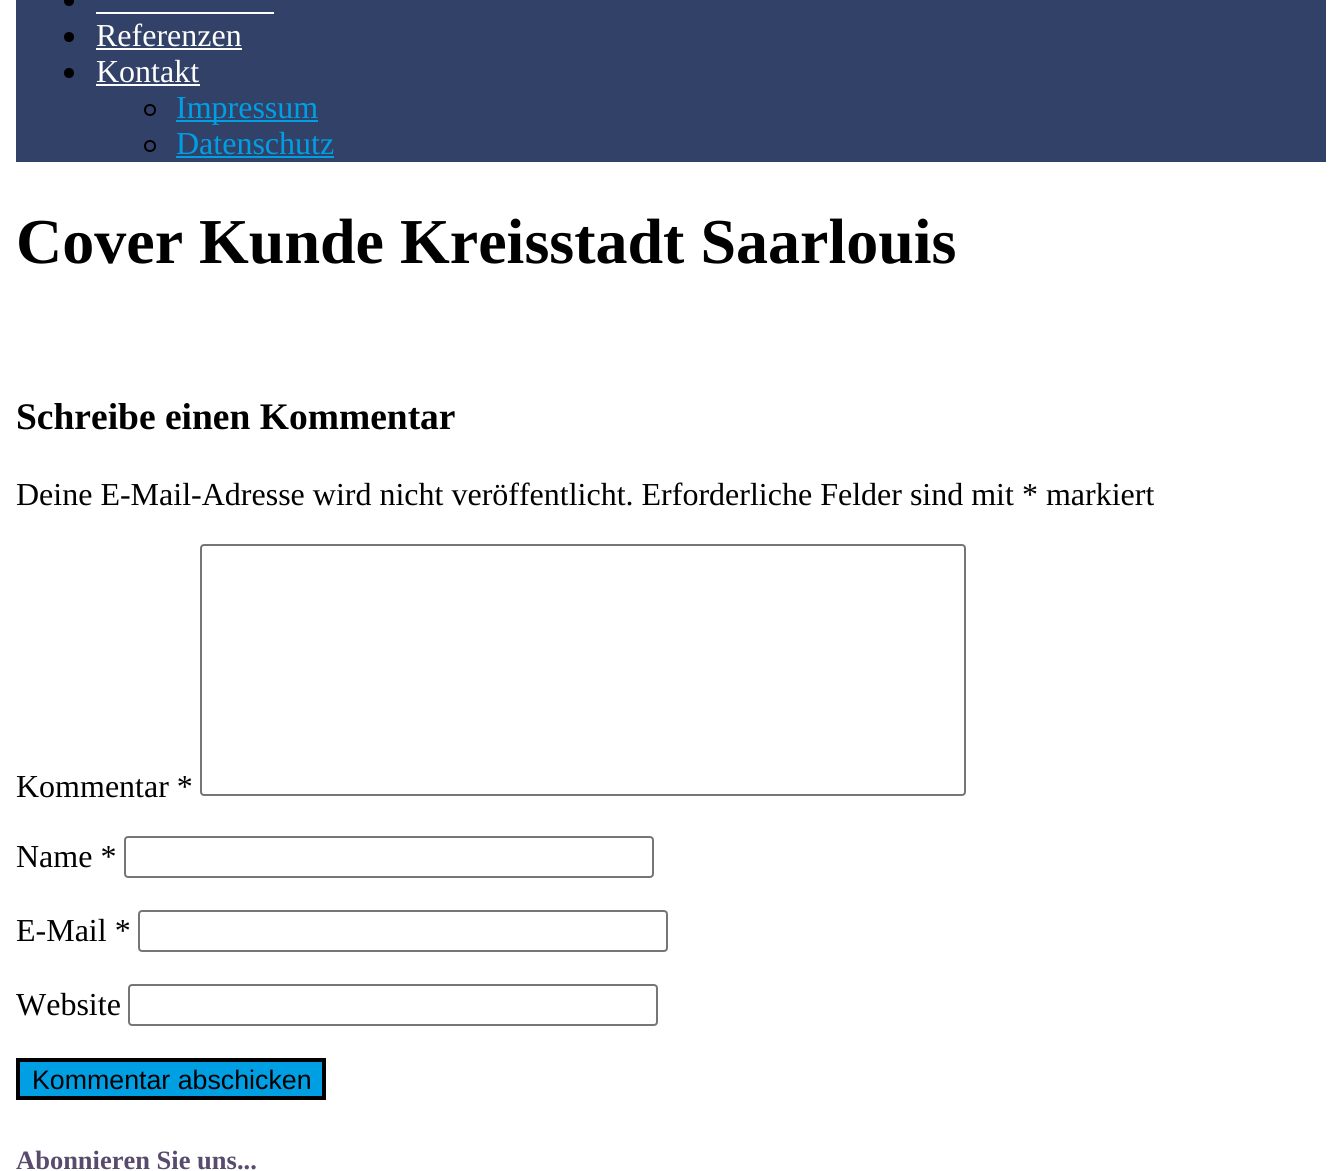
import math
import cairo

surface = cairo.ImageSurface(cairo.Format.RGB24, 1342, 1171)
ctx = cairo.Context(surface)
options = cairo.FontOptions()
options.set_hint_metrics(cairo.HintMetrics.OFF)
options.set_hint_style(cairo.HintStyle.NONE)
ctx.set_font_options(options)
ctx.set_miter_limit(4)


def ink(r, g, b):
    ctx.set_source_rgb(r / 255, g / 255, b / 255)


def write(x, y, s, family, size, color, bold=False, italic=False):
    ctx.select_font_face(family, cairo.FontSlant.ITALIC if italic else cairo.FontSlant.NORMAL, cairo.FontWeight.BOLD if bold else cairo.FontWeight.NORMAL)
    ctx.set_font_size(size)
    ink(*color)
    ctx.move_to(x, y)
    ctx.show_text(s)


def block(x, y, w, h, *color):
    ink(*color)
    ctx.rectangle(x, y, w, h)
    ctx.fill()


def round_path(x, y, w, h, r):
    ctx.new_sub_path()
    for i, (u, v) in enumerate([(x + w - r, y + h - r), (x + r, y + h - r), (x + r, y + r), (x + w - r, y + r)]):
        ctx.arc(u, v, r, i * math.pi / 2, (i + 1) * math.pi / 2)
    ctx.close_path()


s1 = dict(family="Liberation Serif", size=32, color=(255, 255, 255))
s2 = dict(family="Liberation Serif", size=32, color=(0, 159, 227))
s3 = dict(family="Liberation Serif", size=64, color=(0, 0, 0), bold=True)
s4 = dict(family="Liberation Serif", size=37.5, color=(0, 0, 0), bold=True)
s5 = dict(family="Liberation Serif", size=32, color=(0, 0, 0))
s6 = dict(family="Liberation Sans", size=26.75, color=(0, 0, 0))
s7 = dict(family="Liberation Serif", size=26.5, color=(88, 75, 110), bold=True)

ink(255, 255, 255)
ctx.paint()
block(16, 0, 1310, 162, 50, 65, 103)
ink(0, 0, 0)
ctx.arc(69, 1, 5, 0, 2 * math.pi)
ctx.fill()
block(96, 12, 178, 2, 255, 255, 255)
ink(0, 0, 0)
ctx.arc(69, 37, 5, 0, 2 * math.pi)
ctx.fill()
write(96, 46, "Referenzen", **s1)
block(96, 48, 146, 2, 255, 255, 255)
ink(0, 0, 0)
ctx.new_path()
ctx.arc(69, 73, 5, 0, 2 * math.pi)
ctx.fill()
write(96, 82, "Kontakt", **s1)
block(96, 84, 104, 2, 255, 255, 255)
ctx.new_path()
ctx.arc(150, 110, 5, 0, 2 * math.pi)
ink(0, 0, 0)
ctx.stroke()
block(176, 120, 142, 2, 0, 159, 227)
write(176, 118, "Impressum", **s2)
ctx.new_path()
ctx.arc(150, 146, 5, 0, 2 * math.pi)
ink(0, 0, 0)
ctx.stroke()
write(176, 154, "Datenschutz", **s2)
block(176, 156, 158, 2, 0, 159, 227)
write(16, 263, "Cover Kunde Kreisstadt Saarlouis", **s3)
write(16, 429, "Schreibe einen Kommentar", **s4)
write(16, 505, "Deine E-Mail-Adresse wird nicht veröffentlicht. Erforderliche Felder sind mit * markiert", **s5)
write(16, 797, "Kommentar *", **s5)
round_path(201, 545, 764, 250, 3)
ink(118, 118, 118)
ctx.stroke()
write(16, 867, "Name *", **s5)
round_path(125, 837, 528, 40, 3)
ink(118, 118, 118)
ctx.stroke()
write(16, 941, "E-Mail *", **s5)
round_path(139, 911, 528, 40, 3)
ink(118, 118, 118)
ctx.stroke()
write(16, 1015, "Website", **s5)
round_path(129, 985, 528, 40, 3)
ink(118, 118, 118)
ctx.stroke()
ink(0, 159, 227)
ctx.rectangle(18, 1060, 306, 38)
ctx.fill_preserve()
ink(0, 0, 0)
ctx.set_line_width(4)
ctx.stroke()
write(32, 1089, "Kommentar abschicken", **s6)
write(16, 1169, "Abonnieren Sie uns...", **s7)
surface.write_to_png("screenshot.png")
